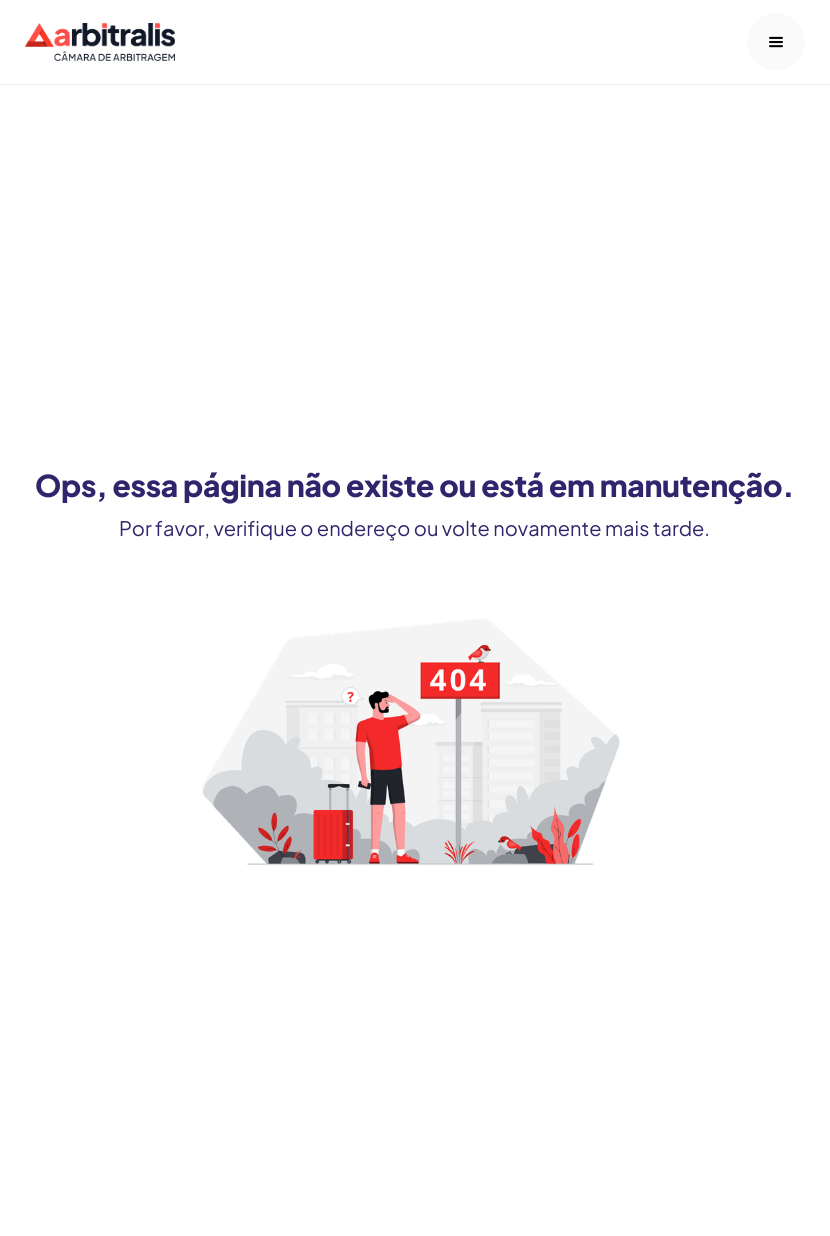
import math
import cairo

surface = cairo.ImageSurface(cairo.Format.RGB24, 830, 1236)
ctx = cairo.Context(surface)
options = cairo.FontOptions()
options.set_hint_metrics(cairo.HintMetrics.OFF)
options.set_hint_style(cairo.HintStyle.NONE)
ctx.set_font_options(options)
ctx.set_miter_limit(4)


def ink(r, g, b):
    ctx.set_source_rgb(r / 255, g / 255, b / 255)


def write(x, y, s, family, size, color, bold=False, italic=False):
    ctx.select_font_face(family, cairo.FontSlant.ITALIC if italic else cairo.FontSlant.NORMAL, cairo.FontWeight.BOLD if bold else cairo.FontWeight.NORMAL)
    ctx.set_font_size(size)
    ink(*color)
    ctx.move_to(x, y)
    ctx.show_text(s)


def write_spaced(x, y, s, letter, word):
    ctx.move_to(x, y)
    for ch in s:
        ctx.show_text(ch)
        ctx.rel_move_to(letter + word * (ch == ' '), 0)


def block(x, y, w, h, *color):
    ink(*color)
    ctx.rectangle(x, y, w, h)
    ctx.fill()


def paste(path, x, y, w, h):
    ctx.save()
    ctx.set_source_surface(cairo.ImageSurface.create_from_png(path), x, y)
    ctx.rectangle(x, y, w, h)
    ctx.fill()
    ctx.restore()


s1 = dict(family="Plus Jakarta Sans", size=20, color=(49, 36, 109))

ink(255, 255, 255)
ctx.paint()
block(0, 84, 830, 1, 234, 236, 238)
paste("pic1.png", 25, 23, 150, 38)
ink(250, 250, 250)
ctx.arc(776, 42, 29, 0, 2 * math.pi)
ctx.fill()
paste("pic2.png", 769, 36, 14, 12)
ctx.select_font_face("Plus Jakarta Sans ExtraBold")
ctx.set_font_size(30)
ink(49, 36, 109)
write_spaced(35, 497, "Ops, essa página não existe ou está em manutenção.", -0.3, 0)
write(119, 536, "Por favor, verifique o endereço ou volte novamente mais tarde.", **s1)
paste("pic3.png", 202, 618, 418, 247)
surface.write_to_png("screenshot.png")
